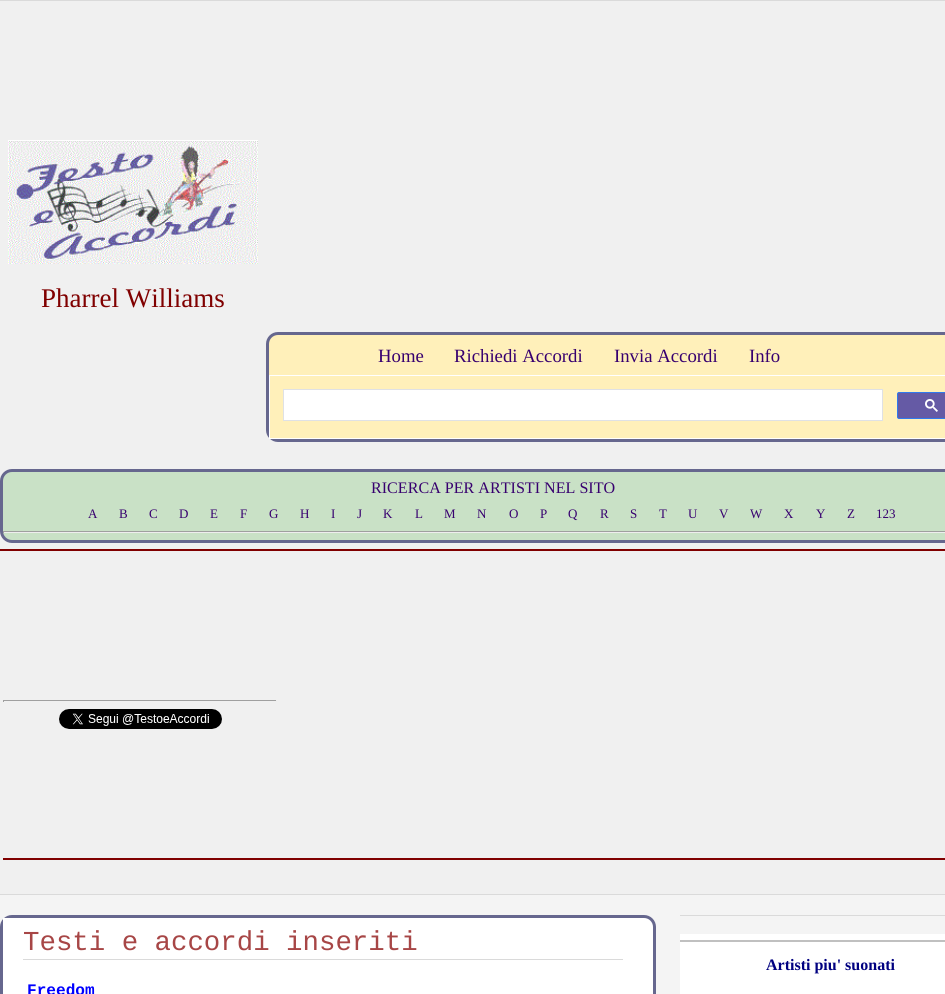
import math
import cairo

surface = cairo.ImageSurface(cairo.Format.RGB24, 945, 994)
ctx = cairo.Context(surface)
options = cairo.FontOptions()
options.set_hint_metrics(cairo.HintMetrics.OFF)
options.set_hint_style(cairo.HintStyle.NONE)
ctx.set_font_options(options)
ctx.set_miter_limit(4)


def ink(r, g, b):
    ctx.set_source_rgb(r / 255, g / 255, b / 255)


def write(x, y, s, family, size, color, bold=False, italic=False):
    ctx.select_font_face(family, cairo.FontSlant.ITALIC if italic else cairo.FontSlant.NORMAL, cairo.FontWeight.BOLD if bold else cairo.FontWeight.NORMAL)
    ctx.set_font_size(size)
    ink(*color)
    ctx.move_to(x, y)
    ctx.show_text(s)


def block(x, y, w, h, *color):
    ink(*color)
    ctx.rectangle(x, y, w, h)
    ctx.fill()


def round_path(x, y, w, h, r):
    ctx.new_sub_path()
    for i, (u, v) in enumerate([(x + w - r, y + h - r), (x + r, y + h - r), (x + r, y + r), (x + w - r, y + r)]):
        ctx.arc(u, v, r, i * math.pi / 2, (i + 1) * math.pi / 2)
    ctx.close_path()


def paste(path, x, y, w, h):
    ctx.save()
    ctx.set_source_surface(cairo.ImageSurface.create_from_png(path), x, y)
    ctx.rectangle(x, y, w, h)
    ctx.fill()
    ctx.restore()


s1 = dict(family="Liberation Serif", size=27, color=(128, 0, 0))
s2 = dict(family="Liberation Serif", size=18.75, color=(55, 0, 111))
s3 = dict(family="Liberation Serif", size=16.1, color=(55, 0, 111))
s4 = dict(family="Liberation Serif", size=13, color=(55, 0, 111))
s5 = dict(family="Liberation Mono", size=27.4, color=(167, 70, 70))
s6 = dict(family="Liberation Mono", size=16.1, color=(0, 0, 255), bold=True)
s7 = dict(family="Liberation Serif", size=16, color=(0, 0, 128), bold=True)

ink(244, 244, 244)
ctx.paint()
block(0, 1, 945, 893, 240, 240, 240)
block(0, 0, 945, 1, 218, 218, 218)
block(0, 894, 945, 1, 218, 218, 218)
paste("pic1.png", 8, 140, 250, 124)
write(41, 307, "Pharrel Williams", **s1)
ink(255, 240, 186)
round_path(267.5, 333.5, 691, 107, 10.5)
ctx.fill_preserve()
ink(102, 103, 142)
ctx.set_line_width(3)
ctx.stroke()
write(378, 362, "Home", **s2)
write(454, 362, "Richiedi Accordi", **s2)
write(614, 362, "Invia Accordi", **s2)
write(749, 362, "Info", **s2)
block(270, 434, 4, 4, 255, 240, 186)
ctx.rectangle(269.5, 375.5, 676, 63)
ink(255, 255, 255)
ctx.set_line_width(1)
ctx.stroke()
ctx.rectangle(283.5, 389.5, 599, 31)
ctx.fill_preserve()
ink(223, 225, 229)
ctx.stroke()
ink(101, 90, 165)
round_path(897.5, 392.5, 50, 26, 1.5)
ctx.fill_preserve()
ink(48, 121, 237)
ctx.stroke()
paste("pic2.png", 925, 399, 13, 13)
ink(201, 225, 198)
round_path(1.5, 470.5, 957, 71, 10.5)
ctx.fill_preserve()
ink(102, 103, 142)
ctx.set_line_width(3)
ctx.stroke()
write(371, 493, "RICERCA PER ARTISTI NEL SITO", **s3)
write(88, 518, "A", **s4)
write(119, 518, "B", **s4)
write(149, 518, "C", **s4)
write(179, 518, "D", **s4)
write(210, 518, "E", **s4)
write(240, 518, "F", **s4)
write(269, 518, "G", **s4)
write(300, 518, "H", **s4)
write(331, 518, "I", **s4)
write(357, 518, "J", **s4)
write(383, 518, "K", **s4)
write(415, 518, "L", **s4)
write(444, 518, "M", **s4)
write(477, 518, "N", **s4)
write(509, 518, "O", **s4)
write(540, 518, "P", **s4)
write(568, 518, "Q", **s4)
write(600, 518, "R", **s4)
write(630, 518, "S", **s4)
write(659, 518, "T", **s4)
write(688, 518, "U", **s4)
write(719, 518, "V", **s4)
write(750, 518, "W", **s4)
write(784, 518, "X", **s4)
write(816, 518, "Y", **s4)
write(847, 518, "Z", **s4)
write(876, 518, "123", **s4)
block(3, 531, 942, 1, 159, 159, 159)
block(3, 532, 942, 1, 238, 238, 238)
block(3, 531, 1, 2, 159, 159, 159)
block(0, 549, 945, 2, 128, 0, 0)
block(3, 700, 274, 1, 159, 159, 159)
block(276, 700, 1, 2, 238, 238, 238)
block(3, 700, 1, 2, 159, 159, 159)
paste("pic3.png", 59, 709, 163, 20)
block(3, 858, 942, 2, 128, 0, 0)
ink(255, 255, 255)
round_path(1.5, 916.5, 653, 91, 10.5)
ctx.fill_preserve()
ink(102, 103, 142)
ctx.stroke()
block(3, 918, 9, 9, 255, 255, 255)
block(23, 959, 600, 1, 218, 218, 218)
write(23, 950, "Testi e accordi inseriti", **s5)
write(27, 995, "Freedom", **s6)
block(680, 915, 265, 1, 218, 218, 218)
block(680, 934, 265, 60, 255, 255, 255)
block(680, 940, 265, 2, 192, 192, 192)
write(766, 970, "Artisti piu' suonati", **s7)
surface.write_to_png("screenshot.png")
